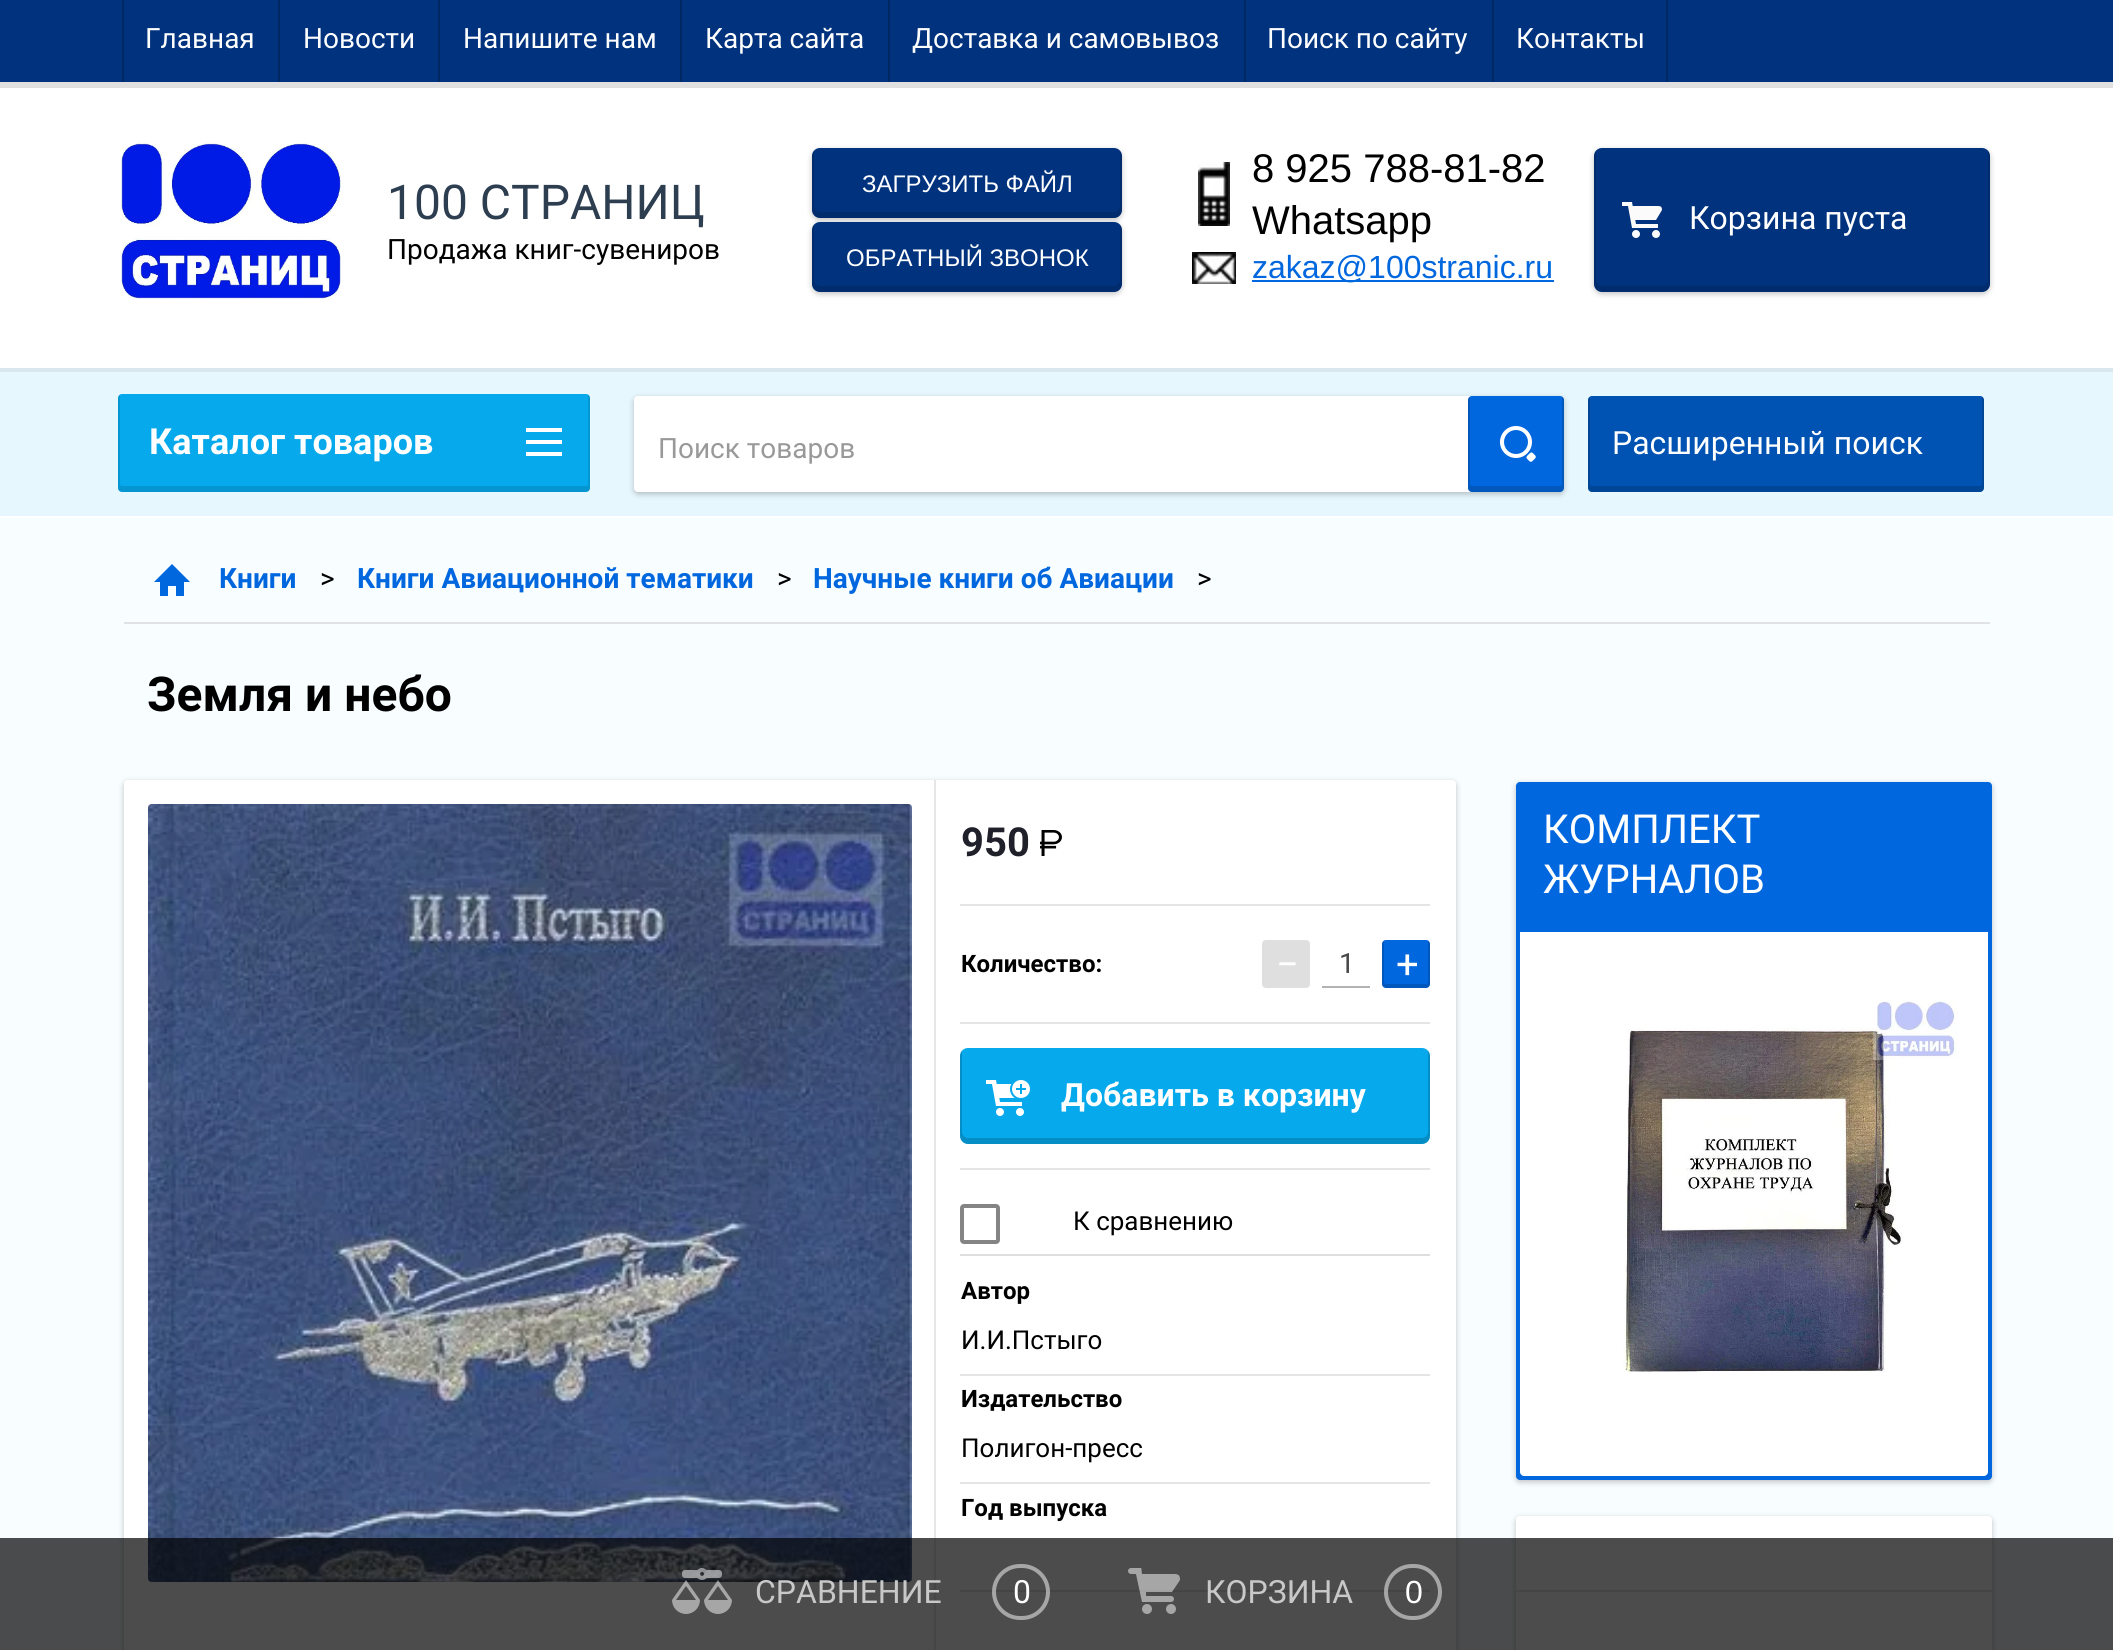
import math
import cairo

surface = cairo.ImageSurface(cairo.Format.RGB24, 2113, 1650)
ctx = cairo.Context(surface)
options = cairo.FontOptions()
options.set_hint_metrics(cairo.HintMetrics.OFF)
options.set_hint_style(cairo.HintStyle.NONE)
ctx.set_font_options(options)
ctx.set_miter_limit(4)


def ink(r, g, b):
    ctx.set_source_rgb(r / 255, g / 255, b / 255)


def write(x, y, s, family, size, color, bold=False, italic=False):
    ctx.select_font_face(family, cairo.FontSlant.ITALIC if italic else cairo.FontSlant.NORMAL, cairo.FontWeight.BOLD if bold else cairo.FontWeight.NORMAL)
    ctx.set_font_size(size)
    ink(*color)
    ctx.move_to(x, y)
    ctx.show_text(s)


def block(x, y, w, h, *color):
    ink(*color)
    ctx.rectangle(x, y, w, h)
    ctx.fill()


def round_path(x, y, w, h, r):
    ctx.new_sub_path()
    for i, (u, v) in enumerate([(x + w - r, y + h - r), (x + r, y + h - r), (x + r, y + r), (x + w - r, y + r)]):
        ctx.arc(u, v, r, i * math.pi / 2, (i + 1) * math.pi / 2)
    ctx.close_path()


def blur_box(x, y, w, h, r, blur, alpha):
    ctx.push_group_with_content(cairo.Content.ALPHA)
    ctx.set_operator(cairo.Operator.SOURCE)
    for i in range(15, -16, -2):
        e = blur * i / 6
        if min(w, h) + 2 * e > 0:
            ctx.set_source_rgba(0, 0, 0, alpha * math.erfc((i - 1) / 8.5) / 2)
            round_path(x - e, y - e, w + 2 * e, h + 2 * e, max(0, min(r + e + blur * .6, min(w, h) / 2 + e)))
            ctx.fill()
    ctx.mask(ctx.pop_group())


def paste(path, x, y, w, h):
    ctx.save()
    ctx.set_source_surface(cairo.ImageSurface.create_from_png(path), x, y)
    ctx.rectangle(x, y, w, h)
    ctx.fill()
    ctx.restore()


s1 = dict(family="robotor", size=28, color=(255, 255, 255))
s2 = dict(family="robotor", size=48, color=(44, 62, 80))
s3 = dict(family="robotor", size=28, color=(0, 0, 0))
s4 = dict(family="Liberation Sans", size=24, color=(255, 255, 255))
s5 = dict(family="Liberation Sans", size=40, color=(0, 0, 0))
s6 = dict(family="Liberation Sans", size=32, color=(1, 103, 222))
s7 = dict(family="robotor", size=32, color=(255, 255, 255))
s8 = dict(family="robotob", size=36, color=(255, 255, 255), bold=True)
s9 = dict(family="robotor", size=40, color=(255, 255, 255))
s10 = dict(family="robotor", size=28, color=(153, 153, 153))
s11 = dict(family="robotob", size=28, color=(1, 103, 222), bold=True)
s12 = dict(family="robotob", size=48, color=(0, 0, 0), bold=True)
s13 = dict(family="robotob", size=40, color=(32, 32, 42), bold=True)
s14 = dict(family="robotob", size=24, color=(0, 0, 0), bold=True)
s15 = dict(family="robotor", size=28, color=(72, 72, 72))
s16 = dict(family="robotob", size=32, color=(255, 255, 255), bold=True)
s17 = dict(family="robotor", size=26, color=(0, 0, 0))
s18 = dict(family="robotor", size=32, color=(200, 200, 200))
s19 = dict(family="Liberation Sans", size=32, color=(255, 255, 255))

ink(248, 253, 255)
ctx.paint()
block(0, 88, 2113, 280, 255, 255, 255)
block(0, 82, 2113, 6, 224, 224, 224)
block(0, 0, 2113, 82, 0, 50, 125)
block(122, 0, 2, 82, 0, 40, 100)
write(145, 48, "Главная", **s1)
block(278, 0, 2, 82, 0, 40, 100)
write(303, 48, "Новости", **s1)
block(438, 0, 2, 82, 0, 40, 100)
write(463, 48, "Напишите нам", **s1)
block(680, 0, 2, 82, 0, 40, 100)
write(705, 48, "Карта сайта", **s1)
block(888, 0, 2, 82, 0, 40, 100)
write(912, 48, "Доставка и самовывоз", **s1)
block(1244, 0, 2, 82, 0, 40, 100)
write(1267, 48, "Поиск по сайту", **s1)
block(1492, 0, 2, 82, 0, 40, 100)
write(1516, 48, "Контакты", **s1)
block(1666, 0, 2, 82, 0, 40, 100)
paste("pic1.png", 120, 142, 221, 158)
write(387, 219, "100 СТРАНИЦ", **s2)
write(387, 259, "Продажа книг-сувениров", **s3)
ink(0, 0, 0)
blur_box(812, 150, 310, 70, 8, 3, 0.24)
ink(0, 50, 125)
round_path(812, 148, 310, 70, 8)
ctx.fill()
ctx.set_source_rgba(0, 0, 0, 0.14)
ctx.new_path()
ctx.move_to(814, 150)
ctx.curve_to(813, 152, 812, 154, 812, 156)
ctx.line_to(812, 210)
ctx.curve_to(812, 214, 816, 218, 820, 218)
ctx.line_to(1114, 218)
ctx.curve_to(1118, 218, 1122, 214, 1122, 210)
ctx.line_to(1122, 156)
ctx.curve_to(1122, 154, 1121, 152, 1120, 150)
ctx.line_to(1120, 206)
ctx.curve_to(1120, 209, 1117, 212, 1114, 212)
ctx.line_to(820, 212)
ctx.curve_to(817, 212, 814, 209, 814, 206)
ctx.close_path()
ctx.fill()
write(862, 192, "ЗАГРУЗИТЬ ФАЙЛ", **s4)
ink(0, 0, 0)
blur_box(812, 224, 310, 70, 8, 3, 0.24)
ink(0, 50, 125)
round_path(812, 222, 310, 70, 8)
ctx.fill()
ctx.set_source_rgba(0, 0, 0, 0.14)
ctx.new_path()
ctx.move_to(814, 224)
ctx.curve_to(813, 226, 812, 228, 812, 230)
ctx.line_to(812, 284)
ctx.curve_to(812, 288, 816, 292, 820, 292)
ctx.line_to(1114, 292)
ctx.curve_to(1118, 292, 1122, 288, 1122, 284)
ctx.line_to(1122, 230)
ctx.curve_to(1122, 228, 1121, 226, 1120, 224)
ctx.line_to(1120, 280)
ctx.curve_to(1120, 283, 1117, 286, 1114, 286)
ctx.line_to(820, 286)
ctx.curve_to(817, 286, 814, 283, 814, 280)
ctx.close_path()
ctx.fill()
write(846, 266, "ОБРАТНЫЙ ЗВОНОК", **s4)
paste("pic2.png", 1198, 162, 32, 64)
write(1252, 182, "8 925 788-81-82", **s5)
write(1252, 234, "Whatsapp", **s5)
paste("pic3.png", 1192, 252, 44, 32)
block(1252, 280, 302, 2, 1, 103, 222)
write(1252, 278, "zakaz@100stranic.ru", **s6)
ink(0, 0, 0)
blur_box(1594, 150, 396, 144, 8, 3, 0.24)
ink(0, 50, 125)
round_path(1594, 148, 396, 144, 8)
ctx.fill()
ctx.set_source_rgba(0, 0, 0, 0.14)
ctx.new_path()
ctx.move_to(1596, 150)
ctx.curve_to(1595, 152, 1594, 154, 1594, 156)
ctx.line_to(1594, 284)
ctx.curve_to(1594, 288, 1598, 292, 1602, 292)
ctx.line_to(1982, 292)
ctx.curve_to(1986, 292, 1990, 288, 1990, 284)
ctx.line_to(1990, 156)
ctx.curve_to(1990, 154, 1989, 152, 1988, 150)
ctx.line_to(1988, 280)
ctx.curve_to(1988, 283, 1985, 286, 1982, 286)
ctx.line_to(1602, 286)
ctx.curve_to(1599, 286, 1596, 283, 1596, 280)
ctx.close_path()
ctx.fill()
paste("pic4.png", 1622, 202, 40, 36)
write(1689, 229, "Корзина пуста", **s7)
block(0, 516, 2113, 2, 255, 255, 255)
block(0, 372, 2113, 144, 231, 247, 254)
block(0, 368, 2113, 4, 217, 232, 239)
ink(6, 169, 235)
round_path(118, 394, 472, 98, 4)
ctx.fill()
ctx.set_source_rgba(0, 0, 0, 0.11)
ctx.new_path()
ctx.move_to(120, 395)
ctx.curve_to(119, 395, 118, 397, 118, 398)
ctx.line_to(118, 488)
ctx.curve_to(118, 490, 120, 492, 122, 492)
ctx.line_to(586, 492)
ctx.curve_to(588, 492, 590, 490, 590, 488)
ctx.line_to(590, 398)
ctx.curve_to(590, 397, 589, 395, 588, 395)
ctx.line_to(588, 484)
ctx.curve_to(588, 485, 587, 486, 586, 486)
ctx.line_to(122, 486)
ctx.curve_to(121, 486, 120, 485, 120, 484)
ctx.close_path()
ctx.fill()
write(149, 454, "Каталог товаров", **s8)
ctx.set_fill_rule(cairo.FillRule.EVEN_ODD)
ctx.new_path()
ctx.move_to(526, 456)
ctx.line_to(526, 452)
ctx.line_to(562, 452)
ctx.line_to(562, 456)
ctx.close_path()
ctx.move_to(526, 440)
ctx.line_to(562, 440)
ctx.line_to(562, 444)
ctx.line_to(526, 444)
ctx.close_path()
ctx.move_to(526, 428)
ctx.line_to(562, 428)
ctx.line_to(562, 432)
ctx.line_to(526, 432)
ctx.close_path()
ctx.fill()
ink(0, 0, 0)
blur_box(1516, 784, 476, 698, 4, 3, 0.24)
ink(1, 103, 222)
round_path(1516, 782, 476, 698, 4)
ctx.fill()
write(1543, 843, "КОМПЛЕКТ", **s9)
write(1543, 893, "ЖУРНАЛОВ", **s9)
ctx.new_path()
ctx.move_to(1520, 932)
ctx.line_to(1988, 932)
ctx.line_to(1988, 1472)
ctx.curve_to(1988, 1474, 1986, 1476, 1984, 1476)
ctx.line_to(1524, 1476)
ctx.curve_to(1522, 1476, 1520, 1474, 1520, 1472)
ctx.close_path()
ctx.fill()
paste("pic5.png", 1623, 1000, 335, 372)
ink(0, 0, 0)
blur_box(1516, 1518, 476, 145, 4, 3, 0.24)
ink(255, 255, 255)
round_path(1516, 1516, 476, 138, 4)
ctx.fill()
block(1516, 1590, 476, 2, 230, 230, 230)
ink(0, 0, 0)
blur_box(634, 398, 930, 96, 4, 3, 0.24)
ink(255, 255, 255)
round_path(634, 396, 930, 96, 4)
ctx.fill()
write(658, 458, "Поиск товаров", **s10)
ink(1, 103, 222)
round_path(1468, 396, 96, 96, 4)
ctx.fill()
ctx.set_source_rgba(0, 0, 0, 0.16)
ctx.set_fill_rule(cairo.FillRule.WINDING)
ctx.new_path()
ctx.move_to(1470, 397)
ctx.curve_to(1469, 397, 1468, 399, 1468, 400)
ctx.line_to(1468, 488)
ctx.curve_to(1468, 490, 1470, 492, 1472, 492)
ctx.line_to(1560, 492)
ctx.curve_to(1562, 492, 1564, 490, 1564, 488)
ctx.line_to(1564, 400)
ctx.curve_to(1564, 399, 1563, 397, 1562, 397)
ctx.line_to(1562, 484)
ctx.curve_to(1562, 485, 1561, 486, 1560, 486)
ctx.line_to(1472, 486)
ctx.curve_to(1471, 486, 1470, 485, 1470, 484)
ctx.close_path()
ctx.fill()
paste("pic6.png", 1500, 426, 36, 36)
ink(0, 83, 179)
round_path(1588, 396, 396, 96, 4)
ctx.fill()
ctx.set_source_rgba(0, 0, 0, 0.16)
ctx.new_path()
ctx.move_to(1590, 397)
ctx.curve_to(1589, 397, 1588, 399, 1588, 400)
ctx.line_to(1588, 488)
ctx.curve_to(1588, 490, 1590, 492, 1592, 492)
ctx.line_to(1980, 492)
ctx.curve_to(1982, 492, 1984, 490, 1984, 488)
ctx.line_to(1984, 400)
ctx.curve_to(1984, 399, 1983, 397, 1982, 397)
ctx.line_to(1982, 484)
ctx.curve_to(1982, 485, 1981, 486, 1980, 486)
ctx.line_to(1592, 486)
ctx.curve_to(1591, 486, 1590, 485, 1590, 484)
ctx.close_path()
ctx.fill()
write(1612, 454, "Расширенный поиск", **s7)
block(124, 622, 1866, 2, 225, 226, 227)
ink(1, 103, 222)
ctx.set_fill_rule(cairo.FillRule.EVEN_ODD)
ctx.new_path()
ctx.move_to(184, 582)
ctx.line_to(184, 596)
ctx.line_to(176, 596)
ctx.line_to(176, 586)
ctx.line_to(168, 586)
ctx.line_to(168, 596)
ctx.line_to(160, 596)
ctx.line_to(160, 582)
ctx.line_to(154, 582)
ctx.line_to(172, 564)
ctx.line_to(190, 582)
ctx.close_path()
ctx.fill()
write(219, 588, "Книги", **s11)
write(320, 588, ">", **s3)
write(357, 588, "Книги Авиационной тематики", **s11)
write(777, 588, ">", **s3)
write(813, 588, "Научные книги об Авиации", **s11)
write(1197, 588, ">", **s3)
write(147, 711, "Земля и небо", **s12)
ink(0, 0, 0)
blur_box(124, 782, 1332, 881, 4, 3, 0.24)
ink(255, 255, 255)
round_path(124, 780, 1332, 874, 4)
ctx.fill()
paste("pic7.png", 148, 804, 764, 778)
block(934, 780, 2, 870, 230, 230, 230)
write(961, 856, "950", **s13)
paste("pic8.png", 1040, 830, 22, 26)
block(960, 904, 470, 2, 229, 229, 229)
block(960, 1022, 470, 2, 229, 229, 229)
write(961, 972, "Количество:", **s14)
ink(223, 223, 223)
round_path(1262, 940, 48, 48, 4)
ctx.fill()
write(1276, 978, "−", **s9)
block(1322, 986, 48, 2, 178, 178, 178)
write(1339, 973, "1", **s15)
ink(1, 103, 222)
round_path(1382, 940, 48, 48, 4)
ctx.fill()
ctx.set_source_rgba(0, 0, 0, 0.16)
ctx.set_fill_rule(cairo.FillRule.WINDING)
ctx.new_path()
ctx.move_to(1386, 940)
ctx.curve_to(1384, 940, 1382, 942, 1382, 944)
ctx.line_to(1382, 984)
ctx.curve_to(1382, 986, 1384, 988, 1386, 988)
ctx.line_to(1426, 988)
ctx.curve_to(1428, 988, 1430, 986, 1430, 984)
ctx.line_to(1430, 944)
ctx.curve_to(1430, 942, 1428, 940, 1426, 940)
ctx.curve_to(1427, 940, 1428, 941, 1428, 942)
ctx.line_to(1428, 982)
ctx.curve_to(1428, 983, 1427, 984, 1426, 984)
ctx.line_to(1386, 984)
ctx.curve_to(1385, 984, 1384, 983, 1384, 982)
ctx.line_to(1384, 942)
ctx.curve_to(1384, 941, 1385, 940, 1386, 940)
ctx.close_path()
ctx.fill()
write(1396, 978, "+", **s9)
ink(6, 169, 235)
round_path(960, 1048, 470, 96, 8)
ctx.fill()
ctx.set_source_rgba(0, 0, 0, 0.16)
ctx.new_path()
ctx.move_to(962, 1050)
ctx.curve_to(961, 1052, 960, 1054, 960, 1056)
ctx.line_to(960, 1136)
ctx.curve_to(960, 1140, 964, 1144, 968, 1144)
ctx.line_to(1422, 1144)
ctx.curve_to(1426, 1144, 1430, 1140, 1430, 1136)
ctx.line_to(1430, 1056)
ctx.curve_to(1430, 1054, 1429, 1052, 1428, 1050)
ctx.line_to(1428, 1132)
ctx.curve_to(1428, 1135, 1425, 1138, 1422, 1138)
ctx.line_to(968, 1138)
ctx.curve_to(965, 1138, 962, 1135, 962, 1132)
ctx.close_path()
ctx.fill()
paste("pic9.png", 986, 1080, 44, 36)
write(1061, 1106, "Добавить в корзину", **s16)
block(960, 1168, 470, 2, 229, 229, 229)
block(960, 1254, 470, 2, 222, 222, 222)
round_path(962, 1206, 36, 36, 2)
ink(132, 132, 132)
ctx.set_line_width(4)
ctx.stroke()
write(1073, 1230, "К сравнению", **s17)
block(960, 1374, 470, 2, 229, 229, 229)
write(961, 1299, "Автор", **s14)
write(961, 1349, "И.И.Пстыго", **s17)
block(960, 1482, 470, 2, 229, 229, 229)
write(961, 1407, "Издательство", **s14)
write(961, 1457, "Полигон-пресс", **s17)
block(960, 1590, 470, 2, 229, 229, 229)
write(961, 1516, "Год выпуска", **s14)
ctx.set_source_rgba(0, 0, 0, 0.7)
ctx.rectangle(0, 1538, 2113, 112)
ctx.fill()
paste("pic10.png", 672, 1568, 60, 46)
write(755, 1603, "СРАВНЕНИЕ", **s18)
round_path(994, 1566, 54, 52, 26)
ctx.set_source_rgba(1, 1, 1, 0.5)
ctx.stroke()
write(1013, 1603, "0", **s7)
paste("pic11.png", 1128, 1568, 52, 46)
write(1205, 1603, "КОРЗИНА", **s18)
round_path(1386, 1566, 54, 52, 26)
ctx.set_source_rgba(1, 1, 1, 0.5)
ctx.stroke()
write(1405, 1603, "0", **s19)
surface.write_to_png("screenshot.png")
